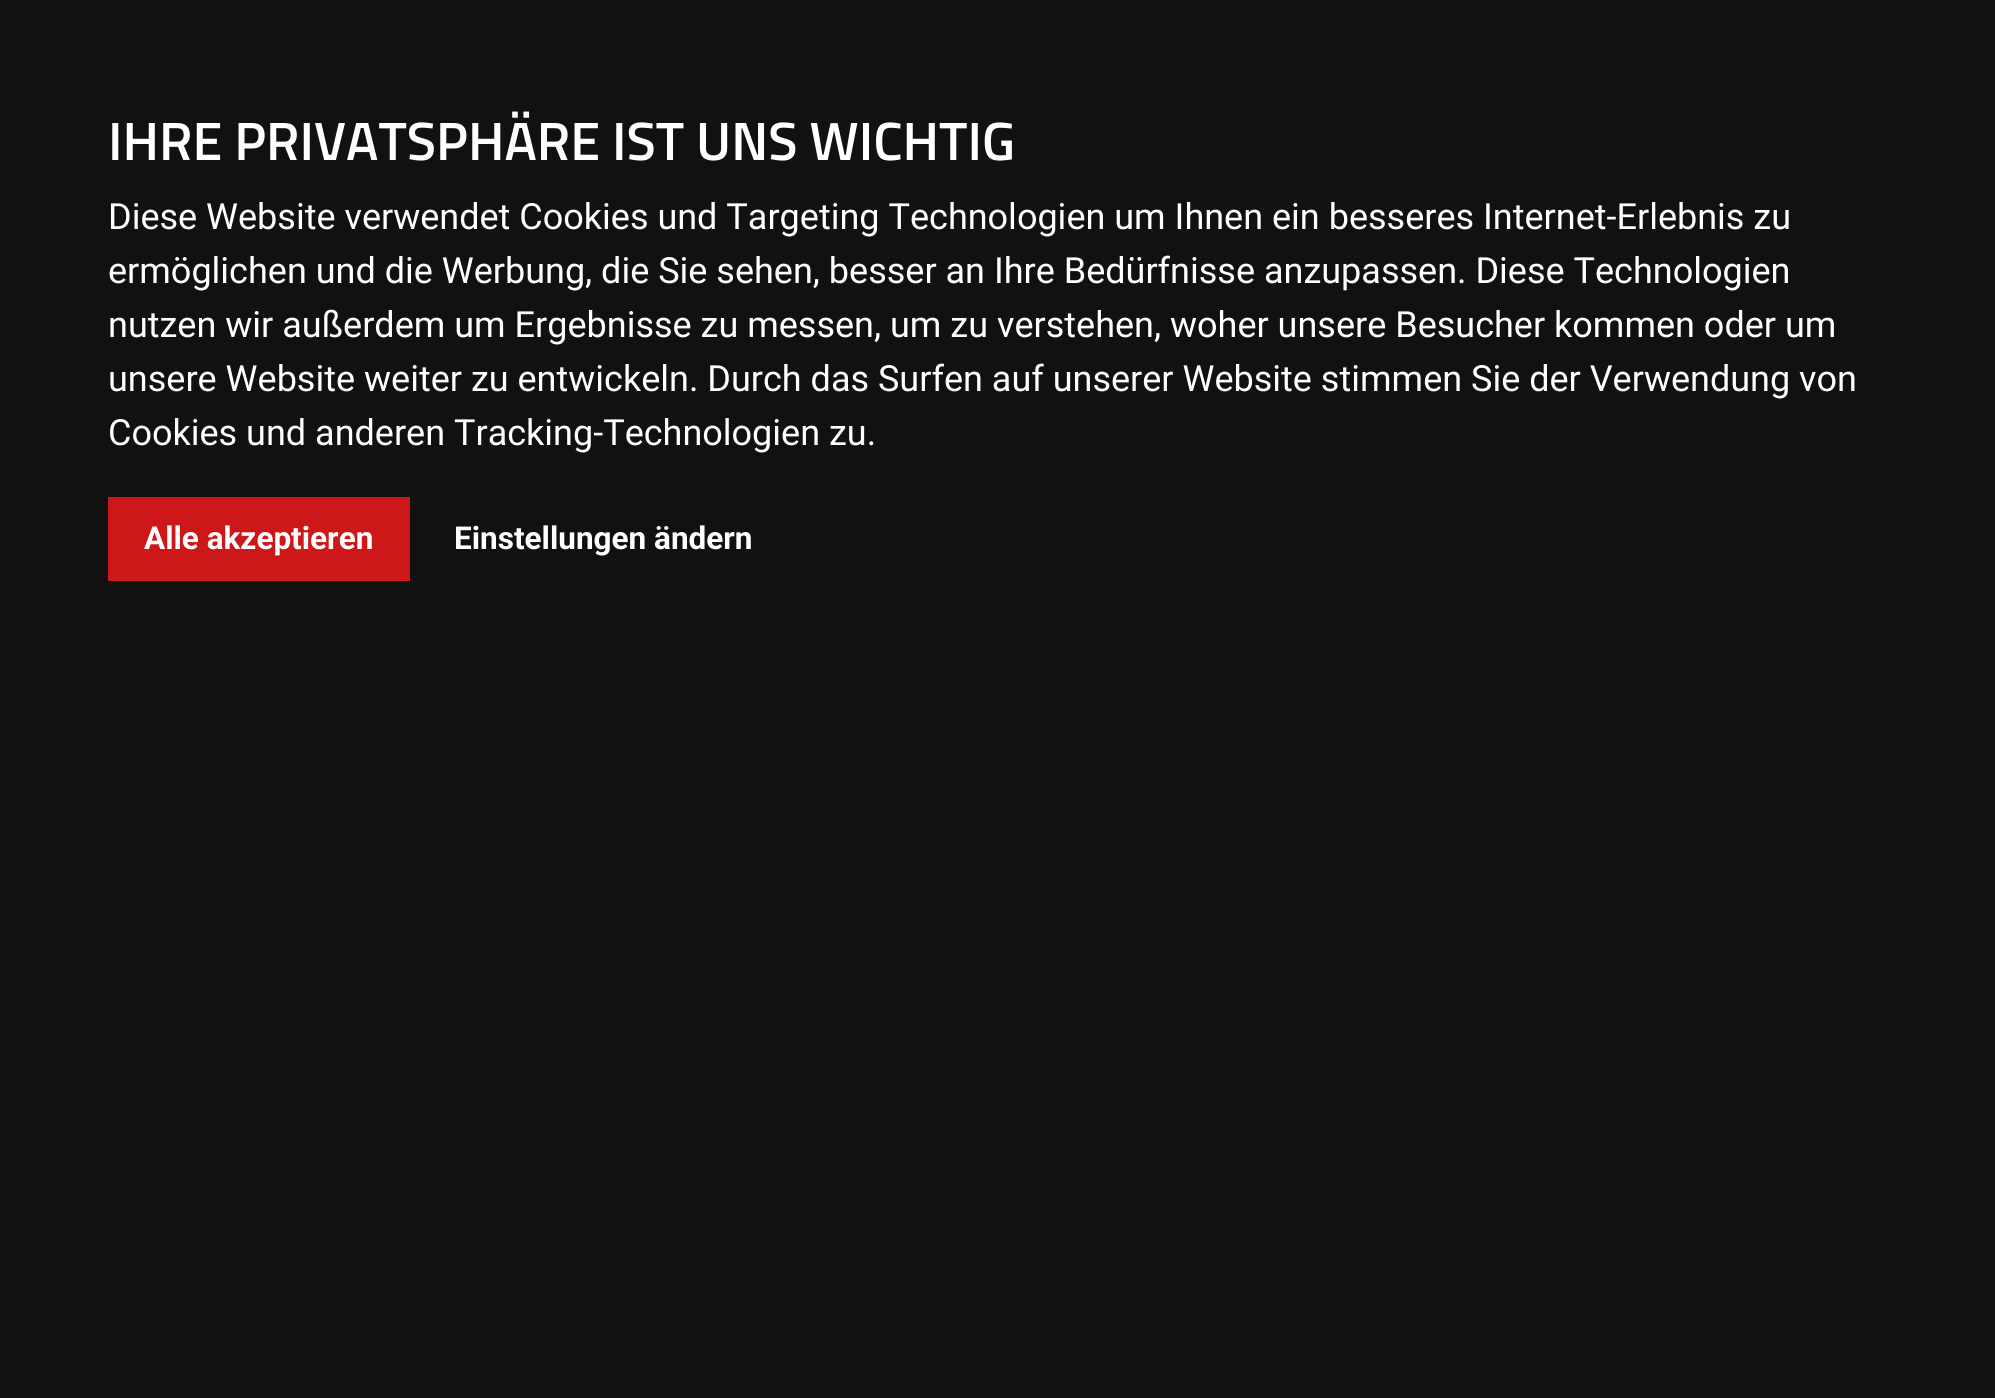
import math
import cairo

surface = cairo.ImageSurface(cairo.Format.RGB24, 1995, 1398)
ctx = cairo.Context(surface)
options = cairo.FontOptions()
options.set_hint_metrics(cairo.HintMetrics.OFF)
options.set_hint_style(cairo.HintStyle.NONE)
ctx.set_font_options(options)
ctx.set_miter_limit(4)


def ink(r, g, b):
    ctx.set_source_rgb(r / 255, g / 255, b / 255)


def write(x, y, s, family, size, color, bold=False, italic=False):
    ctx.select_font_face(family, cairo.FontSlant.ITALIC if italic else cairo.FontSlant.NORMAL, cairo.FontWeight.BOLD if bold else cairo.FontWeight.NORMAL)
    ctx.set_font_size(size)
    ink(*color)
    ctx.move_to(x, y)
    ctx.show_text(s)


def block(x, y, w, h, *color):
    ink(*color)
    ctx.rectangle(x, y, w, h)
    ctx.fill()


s1 = dict(family="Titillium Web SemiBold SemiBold", size=54, color=(255, 255, 255))
s2 = dict(family="Roboto", size=36, color=(255, 255, 255))
s3 = dict(family="Roboto", size=31.5, color=(255, 255, 255), bold=True)

ink(17, 17, 17)
ctx.paint()
write(108, 160, "IHRE PRIVATSPHÄRE IST UNS WICHTIG", **s1)
write(108, 229, "Diese Website verwendet Cookies und Targeting Technologien um Ihnen ein besseres Internet-Erlebnis zu", **s2)
write(108, 283, "ermöglichen und die Werbung, die Sie sehen, besser an Ihre Bedürfnisse anzupassen. Diese Technologien", **s2)
write(108, 337, "nutzen wir außerdem um Ergebnisse zu messen, um zu verstehen, woher unsere Besucher kommen oder um", **s2)
write(108, 391, "unsere Website weiter zu entwickeln. Durch das Surfen auf unserer Website stimmen Sie der Verwendung von", **s2)
write(108, 445, "Cookies und anderen Tracking-Technologien zu.", **s2)
block(108, 497, 302, 84, 205, 23, 25)
write(144, 549, "Alle akzeptieren", **s3)
write(454, 549, "Einstellungen ändern", **s3)
surface.write_to_png("screenshot.png")
